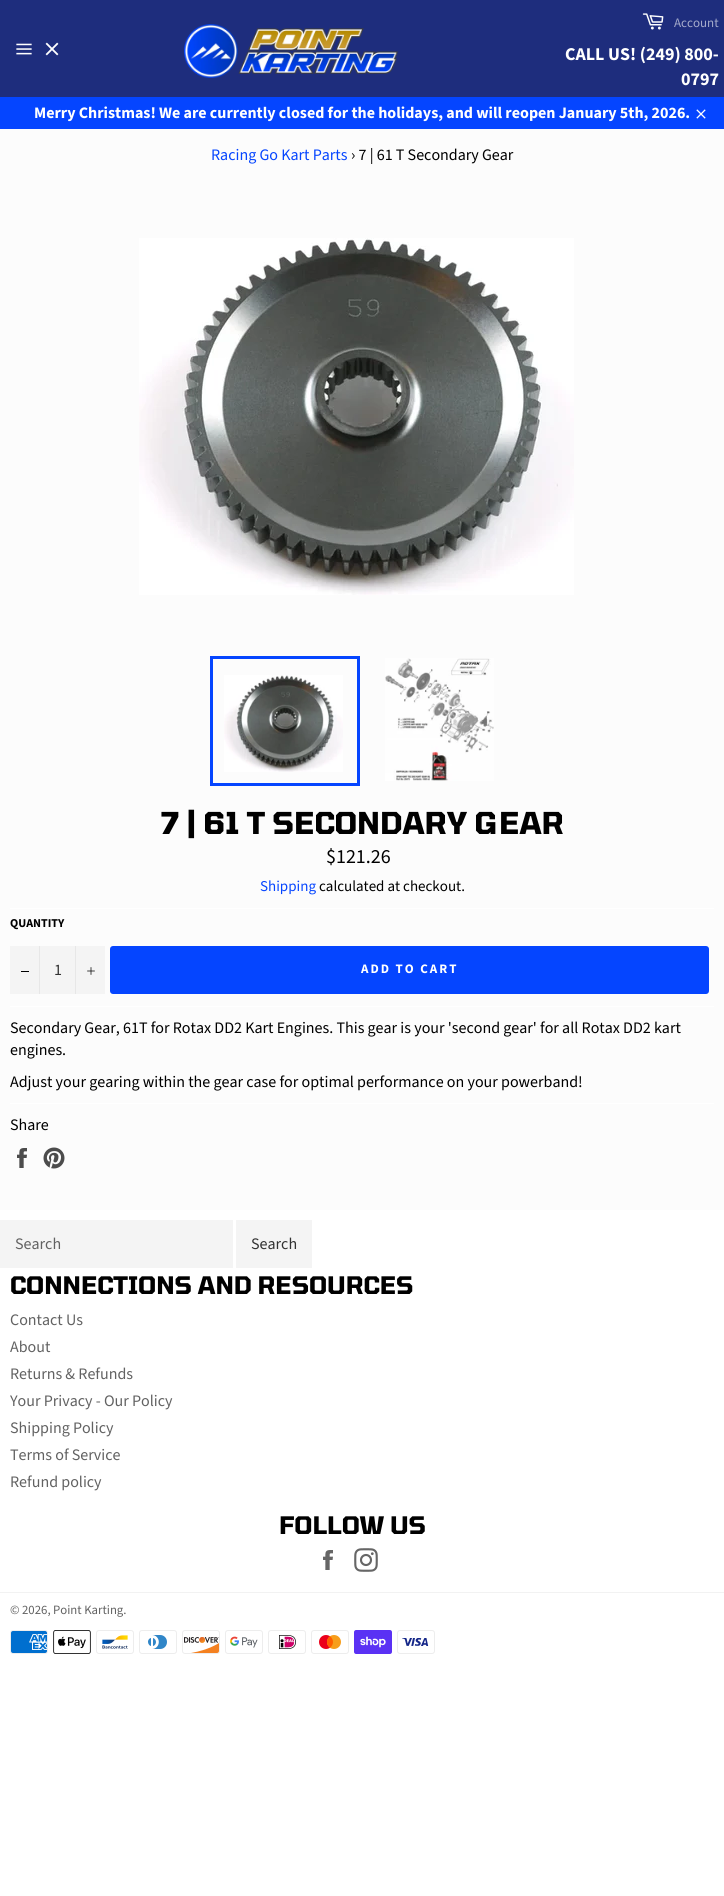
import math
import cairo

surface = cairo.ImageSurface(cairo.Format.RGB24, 724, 1896)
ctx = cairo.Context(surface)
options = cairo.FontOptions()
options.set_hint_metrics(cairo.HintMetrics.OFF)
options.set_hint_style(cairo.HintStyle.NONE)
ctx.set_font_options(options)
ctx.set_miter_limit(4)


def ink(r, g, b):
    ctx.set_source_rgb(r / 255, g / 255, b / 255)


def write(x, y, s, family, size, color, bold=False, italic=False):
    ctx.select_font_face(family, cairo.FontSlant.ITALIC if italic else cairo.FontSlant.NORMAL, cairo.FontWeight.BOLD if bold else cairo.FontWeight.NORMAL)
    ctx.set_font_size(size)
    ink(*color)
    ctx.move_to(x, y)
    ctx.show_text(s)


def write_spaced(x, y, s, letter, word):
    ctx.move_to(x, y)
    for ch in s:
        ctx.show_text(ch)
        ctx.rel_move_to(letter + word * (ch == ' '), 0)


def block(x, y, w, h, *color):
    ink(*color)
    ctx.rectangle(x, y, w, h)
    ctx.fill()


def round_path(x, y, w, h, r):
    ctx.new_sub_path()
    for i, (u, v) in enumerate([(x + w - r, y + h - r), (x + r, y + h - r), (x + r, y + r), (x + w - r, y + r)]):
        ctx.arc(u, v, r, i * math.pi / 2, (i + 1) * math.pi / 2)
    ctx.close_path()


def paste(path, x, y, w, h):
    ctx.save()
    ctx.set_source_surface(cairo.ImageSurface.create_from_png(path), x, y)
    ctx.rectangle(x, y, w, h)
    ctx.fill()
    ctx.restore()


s1 = dict(family="Source Sans Pro", size=13, color=(165, 171, 203))
s2 = dict(family="Source Sans Pro", size=18, color=(255, 255, 255), bold=True)
s3 = dict(family="Source Sans Pro", size=16, color=(255, 255, 255), bold=True)
s4 = dict(family="Source Sans Pro", size=16, color=(5, 69, 255))
s5 = dict(family="Source Sans Pro", size=16, color=(0, 0, 0))
s6 = dict(family="Tomorrow", size=30, color=(0, 0, 0), bold=True)
s7 = dict(family="Source Sans Pro", size=20, color=(0, 0, 0))
s8 = dict(family="Source Sans Pro", size=15, color=(5, 69, 255))
s9 = dict(family="Source Sans Pro", size=15, color=(0, 0, 0))
s10 = dict(family="Source Sans Pro", size=12, color=(0, 0, 0), bold=True)
s11 = dict(family="Source Sans Pro", size=16, color=(51, 51, 51))
s12 = dict(family="Source Sans Pro", size=16, color=(98, 98, 98))
s13 = dict(family="Tomorrow", size=24, color=(0, 0, 0), bold=True)
s14 = dict(family="Source Sans Pro", size=12.75, color=(98, 98, 98))

ink(255, 255, 255)
ctx.paint()
block(0, 0, 724, 97, 30, 45, 125)
paste("pic1.png", 16, 43, 16, 12)
paste("pic2.png", 45, 42, 14, 14)
paste("pic3.png", 184, 24, 214, 54)
paste("pic4.png", 642, 13, 22, 17)
write(674, 27, "Account", **s1)
write(565, 60, "CALL US! (249) 800-", **s2)
write(681, 85, "0797", **s2)
block(0, 97, 724, 32, 5, 69, 255)
write(34, 118, "Merry Christmas! We are currently closed for the holidays, and will reopen January 5th, 2026.", **s3)
paste("pic5.png", 696, 109, 10, 10)
block(0, 129, 724, 1081, 252, 252, 252)
write(211, 160, "Racing Go Kart Parts", **s4)
write(351, 160, "› 7 | 61 T Secondary Gear", **s5)
paste("pic6.png", 139, 238, 435, 357)
paste("pic7.png", 224, 675, 119, 97)
ctx.rectangle(211.5, 657.5, 147, 127)
ink(5, 69, 255)
ctx.set_line_width(3)
ctx.stroke()
paste("pic8.png", 385, 658, 109, 123)
write(161, 834, "7 | 61 T SECONDARY GEAR", **s6)
write(326, 863, "$121.26", **s7)
write(260, 891, "Shipping", **s8)
write(319, 891, "calculated at checkout.", **s9)
block(10, 908, 704, 1, 255, 255, 255)
write(10, 927, "QUANTITY", **s10)
block(10, 946, 95, 48, 244, 244, 244)
block(39, 946, 1, 48, 231, 231, 231)
block(21, 971, 8, 1, 0, 0, 0)
write(54, 975, "1", **s11)
block(75, 946, 1, 48, 231, 231, 231)
paste("pic9.png", 87, 967, 8, 8)
ink(5, 69, 255)
round_path(110, 946, 599, 48, 3)
ctx.fill()
ctx.select_font_face("Source Sans Pro", cairo.FontSlant.NORMAL, cairo.FontWeight.BOLD)
ctx.set_font_size(13)
ink(255, 255, 255)
write_spaced(361, 973, "ADD TO CART", 2, 0)
block(10, 1006, 704, 1, 255, 255, 255)
write(10, 1033, "Secondary Gear, 61T for Rotax DD2 Kart Engines. This gear is your 'second gear' for all Rotax DD2 kart", **s5)
write(10, 1055, "engines.", **s5)
write(10, 1087, "Adjust your gearing within the gear case for optimal performance on your powerband!", **s5)
block(10, 1103, 704, 1, 255, 255, 255)
write(10, 1130, "Share", **s5)
paste("pic10.png", 17, 1148, 10, 20)
paste("pic11.png", 43, 1147, 22, 22)
block(0, 1220, 233, 48, 244, 244, 244)
write(15, 1249, "Search", **s12)
block(236, 1220, 76, 48, 244, 244, 244)
write(251, 1249, "Search", **s11)
write(10, 1294, "CONNECTIONS AND RESOURCES", **s13)
write(10, 1325, "Contact Us", **s12)
write(10, 1352, "About", **s12)
write(10, 1379, "Returns & Refunds", **s12)
write(10, 1406, "Your Privacy - Our Policy", **s12)
write(10, 1433, "Shipping Policy", **s12)
write(10, 1460, "Terms of Service", **s12)
write(10, 1487, "Refund policy", **s12)
write(279, 1534, "FOLLOW US", **s13)
paste("pic12.png", 323, 1550, 10, 20)
paste("pic13.png", 354, 1548, 24, 24)
block(0, 1592, 724, 1, 242, 242, 242)
write(10, 1614, "© 2026, Point Karting.", **s14)
paste("pic14.png", 10, 1630, 38, 24)
paste("pic15.png", 53, 1630, 38, 24)
paste("pic16.png", 96, 1630, 38, 24)
paste("pic17.png", 139, 1630, 38, 24)
paste("pic18.png", 182, 1630, 38, 24)
paste("pic19.png", 225, 1630, 38, 24)
paste("pic20.png", 268, 1630, 38, 24)
paste("pic21.png", 311, 1630, 38, 24)
paste("pic22.png", 354, 1630, 38, 24)
paste("pic23.png", 397, 1630, 38, 24)
surface.write_to_png("screenshot.png")
